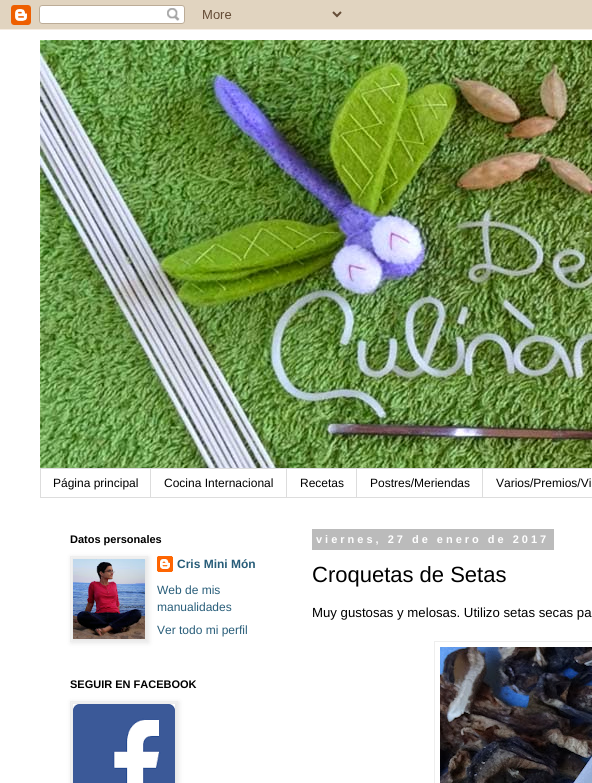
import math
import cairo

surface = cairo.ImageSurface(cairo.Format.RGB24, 592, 783)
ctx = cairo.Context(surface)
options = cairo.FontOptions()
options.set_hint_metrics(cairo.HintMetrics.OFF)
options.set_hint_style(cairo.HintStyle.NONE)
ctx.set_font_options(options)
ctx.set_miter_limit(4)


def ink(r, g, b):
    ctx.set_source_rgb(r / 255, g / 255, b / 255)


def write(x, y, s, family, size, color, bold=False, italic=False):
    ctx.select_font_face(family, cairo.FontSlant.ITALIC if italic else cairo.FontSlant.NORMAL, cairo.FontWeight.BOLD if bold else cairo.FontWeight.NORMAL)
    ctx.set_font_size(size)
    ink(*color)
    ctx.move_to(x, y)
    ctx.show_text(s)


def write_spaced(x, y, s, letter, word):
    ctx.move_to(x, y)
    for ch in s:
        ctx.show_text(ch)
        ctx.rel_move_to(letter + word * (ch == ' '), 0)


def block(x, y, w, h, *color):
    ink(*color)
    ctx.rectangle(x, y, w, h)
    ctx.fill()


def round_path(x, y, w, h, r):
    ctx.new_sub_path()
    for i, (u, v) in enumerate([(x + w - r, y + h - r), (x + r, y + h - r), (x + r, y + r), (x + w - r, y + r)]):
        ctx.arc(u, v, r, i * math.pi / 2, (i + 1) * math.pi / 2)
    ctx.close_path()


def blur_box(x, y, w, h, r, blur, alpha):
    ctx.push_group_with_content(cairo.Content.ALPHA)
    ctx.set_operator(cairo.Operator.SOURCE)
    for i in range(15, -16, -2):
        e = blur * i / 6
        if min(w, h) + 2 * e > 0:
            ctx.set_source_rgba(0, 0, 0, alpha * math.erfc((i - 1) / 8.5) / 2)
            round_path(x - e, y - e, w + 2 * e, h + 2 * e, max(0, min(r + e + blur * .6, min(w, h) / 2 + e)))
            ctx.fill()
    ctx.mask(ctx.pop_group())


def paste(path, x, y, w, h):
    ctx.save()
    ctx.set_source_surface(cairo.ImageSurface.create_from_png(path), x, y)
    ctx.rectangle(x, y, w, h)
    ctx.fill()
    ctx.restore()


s1 = dict(family="Liberation Sans", size=12, color=(0, 0, 0))
s2 = dict(family="Liberation Sans", size=11, color=(0, 0, 0), bold=True)
s3 = dict(family="Liberation Sans", size=12, color=(40, 93, 121), bold=True)
s4 = dict(family="Liberation Sans", size=12, color=(40, 93, 121))
s5 = dict(family="Liberation Sans", size=22, color=(0, 0, 0))
s6 = dict(family="Liberation Sans", size=13.2, color=(0, 0, 0))

ink(255, 255, 255)
ctx.paint()
paste("pic1.png", 0, 0, 592, 30)
paste("pic2.png", 40, 40, 552, 428)
ctx.rectangle(40.5, 468.5, 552, 29)
ink(221, 221, 221)
ctx.set_line_width(1)
ctx.stroke()
block(150, 469, 1, 28, 221, 221, 221)
write(53, 487, "Página principal", **s1)
block(286, 469, 1, 28, 221, 221, 221)
write(164, 487, "Cocina Internacional", **s1)
block(356, 469, 1, 28, 221, 221, 221)
write(300, 487, "Recetas", **s1)
block(482, 469, 1, 28, 221, 221, 221)
write(370, 487, "Postres/Meriendas", **s1)
write(496, 487, "Varios/Premios/Vi", **s1)
write(70, 543, "Datos personales", **s2)
paste("pic4.png", 157, 556, 16, 16)
ink(0, 0, 0)
blur_box(71, 557, 78, 86, 0, 2.5, 0.1)
ctx.rectangle(70.5, 556.5, 77, 85)
ink(238, 238, 238)
ctx.stroke()
paste("pic3.png", 73, 559, 72, 80)
write(177, 568, "Cris Mini Món", **s3)
write(157, 594, "Web de mis", **s4)
write(157, 611, "manualidades", **s4)
write(157, 634, "Ver todo mi perfil", **s4)
write(70, 688, "SEGUIR EN FACEBOOK", **s2)
ink(0, 0, 0)
blur_box(71, 702, 108, 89, 0, 2.5, 0.1)
ctx.rectangle(70.5, 701.5, 107, 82)
ink(238, 238, 238)
ctx.stroke()
paste("pic5.png", 73, 704, 102, 79)
block(312, 529, 242, 21, 187, 187, 187)
ink(255, 255, 255)
write_spaced(316, 543, "viernes, 27 de enero de 2017", 3, 0)
write(312, 582, "Croquetas de Setas", **s5)
write(312, 617, "Muy gustosas y melosas. Utilizo setas secas pa", **s6)
ctx.rectangle(434.5, 641.5, 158, 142)
ink(238, 238, 238)
ctx.stroke()
paste("pic6.png", 440, 647, 152, 136)
surface.write_to_png("screenshot.png")
